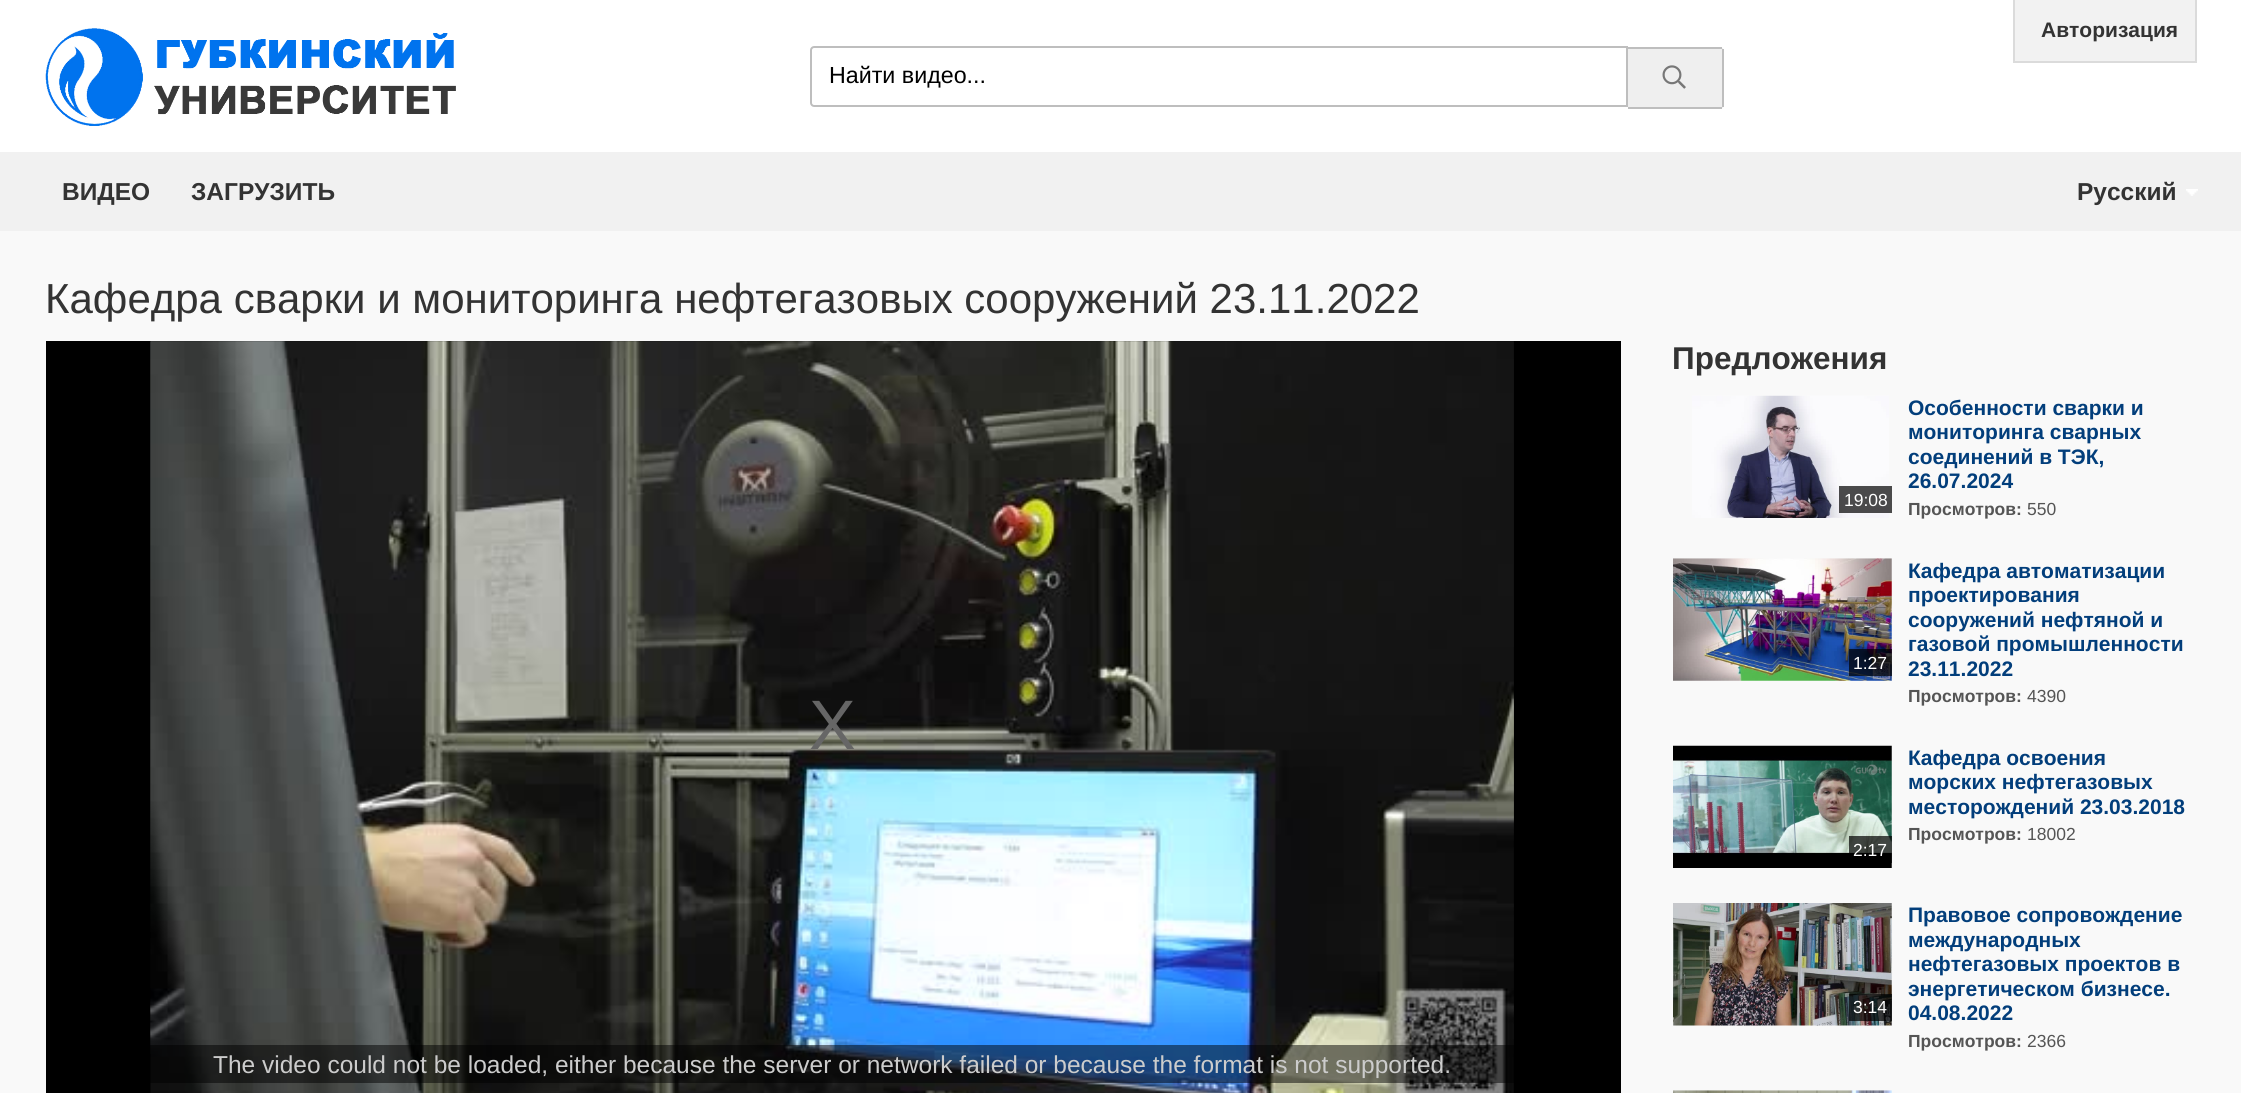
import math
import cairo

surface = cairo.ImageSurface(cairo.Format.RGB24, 2241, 1093)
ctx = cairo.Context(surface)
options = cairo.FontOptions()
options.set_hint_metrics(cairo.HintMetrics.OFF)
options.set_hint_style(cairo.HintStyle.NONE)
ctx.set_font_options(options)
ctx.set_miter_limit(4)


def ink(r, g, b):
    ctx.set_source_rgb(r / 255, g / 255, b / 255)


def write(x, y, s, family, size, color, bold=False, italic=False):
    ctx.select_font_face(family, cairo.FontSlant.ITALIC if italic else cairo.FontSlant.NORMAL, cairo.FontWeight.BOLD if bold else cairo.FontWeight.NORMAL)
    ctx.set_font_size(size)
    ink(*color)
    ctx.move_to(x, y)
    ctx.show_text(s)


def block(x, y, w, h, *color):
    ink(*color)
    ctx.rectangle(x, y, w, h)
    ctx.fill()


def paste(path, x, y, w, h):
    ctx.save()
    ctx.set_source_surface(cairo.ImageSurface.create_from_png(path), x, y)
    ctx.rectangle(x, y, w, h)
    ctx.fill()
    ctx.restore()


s1 = dict(family="Liberation Sans", size=23.25, color=(0, 0, 0))
s2 = dict(family="Liberation Sans", size=21, color=(51, 51, 51), bold=True)
s3 = dict(family="Liberation Sans", size=24.5, color=(51, 51, 51), bold=True)
s4 = dict(family="Liberation Sans", size=42, color=(51, 51, 51))
s5 = dict(family="Liberation Sans", size=70, color=(102, 102, 102))
s6 = dict(family="Liberation Sans", size=24.5, color=(204, 204, 204))
s7 = dict(family="Liberation Sans", size=31.5, color=(51, 51, 51), bold=True)
s8 = dict(family="Liberation Sans", size=17.5, color=(255, 255, 255))
s9 = dict(family="Liberation Sans", size=21, color=(2, 62, 123), bold=True)
s10 = dict(family="Liberation Sans", size=17.5, color=(85, 85, 85), bold=True)
s11 = dict(family="Liberation Sans", size=17.5, color=(85, 85, 85))

ink(255, 255, 255)
ctx.paint()
paste("pic1.png", 45, 28, 411, 98)
ctx.new_path()
ctx.move_to(814, 47)
ctx.line_to(1627, 47)
ctx.line_to(1627, 106)
ctx.line_to(814, 106)
ctx.curve_to(812.5, 106, 811, 104.5, 811, 103)
ctx.line_to(811, 50)
ctx.curve_to(811, 48.5, 812.5, 47, 814, 47)
ctx.close_path()
ink(190, 190, 190)
ctx.stroke()
write(829, 83, "Найти видео...", **s1)
ink(239, 239, 239)
ctx.new_path()
ctx.move_to(1628, 47)
ctx.line_to(1720, 47)
ctx.curve_to(1722, 47, 1724, 49, 1724, 51)
ctx.line_to(1724, 105)
ctx.curve_to(1724, 107, 1722, 109, 1720, 109)
ctx.line_to(1628, 109)
ctx.close_path()
ctx.fill()
block(1628, 47, 94, 2, 190, 190, 190)
block(1722, 49, 2, 58, 190, 190, 190)
block(1628, 107, 94, 2, 190, 190, 190)
paste("pic2.png", 1662, 65, 24, 24)
block(2015, 0, 180, 61, 242, 242, 242)
block(2195, 0, 2, 63, 219, 219, 219)
block(2013, 61, 183, 2, 219, 219, 219)
block(2013, 0, 2, 63, 219, 219, 219)
write(2041, 37, "Авторизация", **s2)
block(0, 152, 2241, 79, 241, 241, 241)
write(62, 200, "ВИДЕО", **s3)
write(191, 200, "ЗАГРУЗИТЬ", **s3)
write(2077, 200, "Русский", **s3)
paste("pic3.png", 2186, 189, 12, 7)
block(0, 231, 2241, 862, 249, 249, 249)
write(45, 313, "Кафедра сварки и мониторинга нефтегазовых сооружений 23.11.2022", **s4)
block(46, 341, 1575, 752, 0, 0, 0)
paste("pic4.png", 150, 341, 1364, 752)
paste("pic5.png", 150, 341, 1364, 713)
write(809, 749, "X", **s5)
ctx.set_source_rgba(0, 0, 0, 0.5)
ctx.rectangle(150, 1045, 1364, 38)
ctx.fill()
write(213, 1073, "The video could not be loaded, either because the server or network failed or because the format is not supported.", **s6)
write(1672, 369, "Предложения", **s7)
paste("pic6.png", 1692, 395, 197, 123)
ctx.set_source_rgba(0, 0, 0, 0.7)
ctx.rectangle(1839, 486, 53, 27)
ctx.fill()
write(1844, 506, "19:08", **s8)
write(1908, 415, "Особенности сварки и", **s9)
write(1908, 439, "мониторинга сварных", **s9)
write(1908, 464, "соединений в ТЭК,", **s9)
write(1908, 488, "26.07.2024", **s9)
write(1908, 515, "Просмотров:", **s10)
write(2027, 515, "550", **s11)
paste("pic7.png", 1673, 558, 219, 123)
ctx.set_source_rgba(0, 0, 0, 0.7)
ctx.rectangle(1849, 649, 43, 27)
ctx.fill()
write(1853, 669, "1:27", **s8)
write(1908, 578, "Кафедра автоматизации", **s9)
write(1908, 602, "проектирования", **s9)
write(1908, 627, "сооружений нефтяной и", **s9)
write(1908, 651, "газовой промышленности", **s9)
write(1908, 676, "23.11.2022", **s9)
write(1908, 702, "Просмотров:", **s10)
write(2027, 702, "4390", **s11)
write(1908, 765, "Кафедра освоения", **s9)
write(1908, 789, "морских нефтегазовых", **s9)
write(1908, 814, "месторождений 23.03.2018", **s9)
write(1908, 840, "Просмотров:", **s10)
write(2027, 840, "18002", **s11)
paste("pic8.png", 1673, 745, 219, 123)
ctx.set_source_rgba(0, 0, 0, 0.7)
ctx.rectangle(1849, 836, 43, 27)
ctx.fill()
write(1853, 856, "2:17", **s8)
paste("pic9.png", 1673, 903, 219, 123)
ctx.set_source_rgba(0, 0, 0, 0.7)
ctx.rectangle(1849, 994, 43, 27)
ctx.fill()
write(1853, 1013, "3:14", **s8)
write(1908, 922, "Правовое сопровождение", **s9)
write(1908, 947, "международных", **s9)
write(1908, 971, "нефтегазовых проектов в", **s9)
write(1908, 996, "энергетическом бизнесе.", **s9)
write(1908, 1020, "04.08.2022", **s9)
write(1908, 1047, "Просмотров:", **s10)
write(2027, 1047, "2366", **s11)
paste("pic10.png", 1673, 1090, 219, 3)
surface.write_to_png("screenshot.png")
